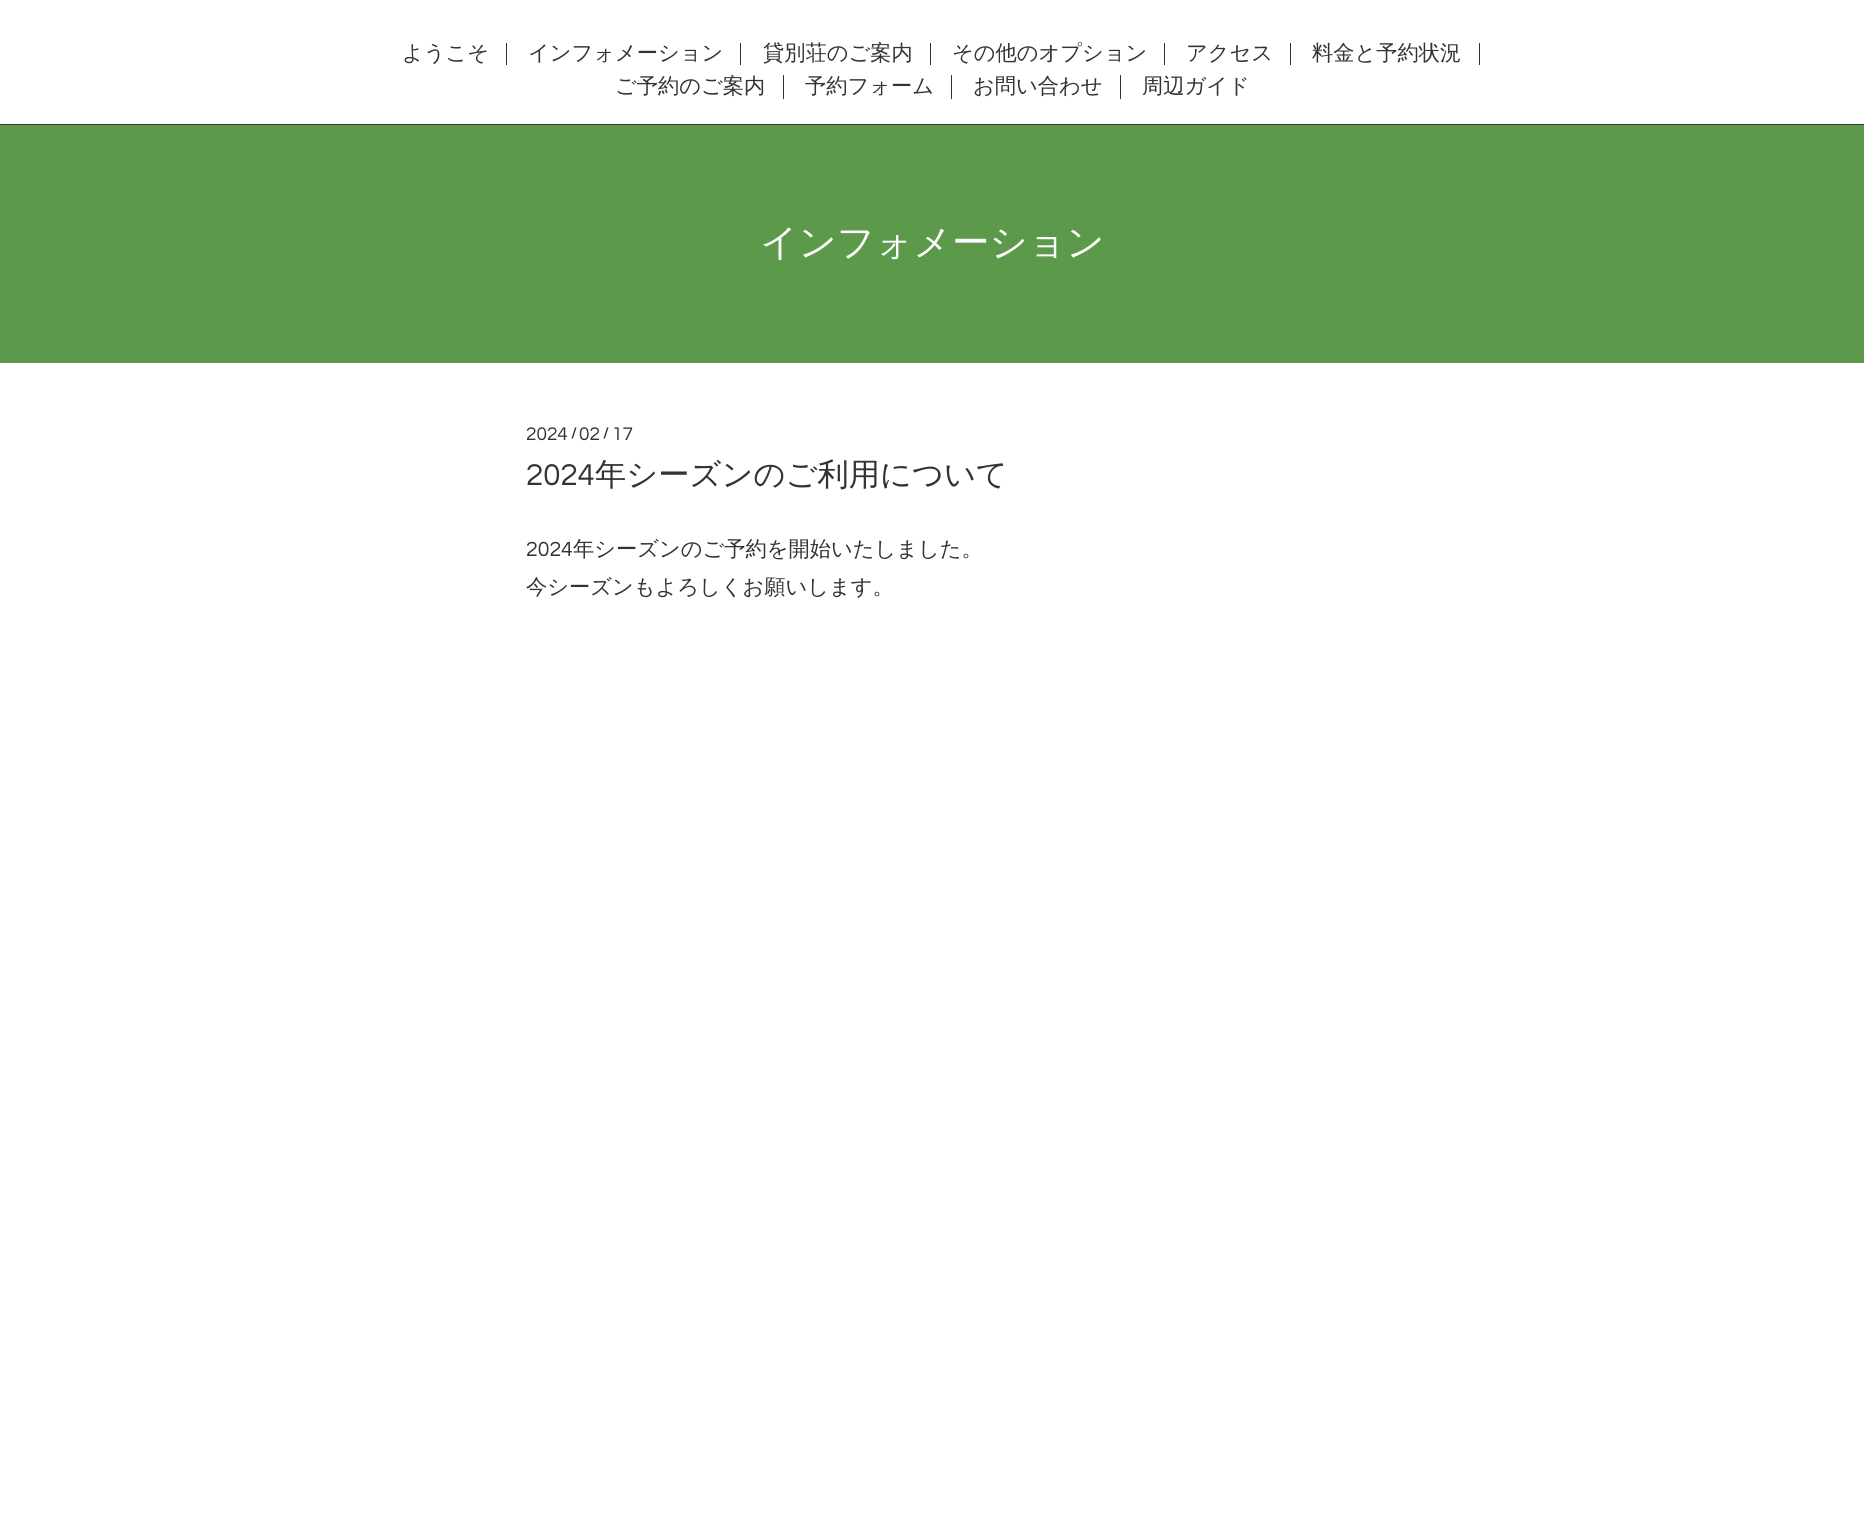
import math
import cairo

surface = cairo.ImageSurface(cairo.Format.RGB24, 1864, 1524)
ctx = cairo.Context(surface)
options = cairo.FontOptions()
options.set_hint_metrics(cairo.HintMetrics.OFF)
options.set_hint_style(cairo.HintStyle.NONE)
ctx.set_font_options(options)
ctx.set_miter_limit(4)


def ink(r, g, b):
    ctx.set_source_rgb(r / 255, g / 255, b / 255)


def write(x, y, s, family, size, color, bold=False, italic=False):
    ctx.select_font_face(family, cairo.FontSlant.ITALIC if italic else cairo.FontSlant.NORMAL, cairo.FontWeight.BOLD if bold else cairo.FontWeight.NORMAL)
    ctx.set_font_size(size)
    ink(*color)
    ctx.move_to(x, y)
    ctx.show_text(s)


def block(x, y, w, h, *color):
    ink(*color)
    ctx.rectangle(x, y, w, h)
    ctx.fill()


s1 = dict(family="WenQuanYi Zen Hei Medium", size=21.25, color=(51, 51, 51))
s2 = dict(family="WenQuanYi Zen Hei Medium", size=37.5, color=(255, 255, 255))
s3 = dict(family="Questrial", size=19, color=(51, 51, 51))
s4 = dict(family="Questrial", size=15, color=(51, 51, 51), bold=True)
s5 = dict(family="Questrial", size=31.25, color=(51, 51, 51))
s6 = dict(family="WenQuanYi Zen Hei Medium", size=31.25, color=(51, 51, 51))
s7 = dict(family="Questrial", size=21.25, color=(51, 51, 51))

ink(255, 255, 255)
ctx.paint()
block(0, 124, 1864, 1, 51, 51, 51)
block(506, 43, 1, 22, 51, 51, 51)
write(402, 60, "ようこそ", **s1)
block(740, 43, 1, 22, 51, 51, 51)
write(528, 60, "インフォメーション", **s1)
block(930, 43, 1, 22, 51, 51, 51)
write(763, 60, "貸別荘のご案内", **s1)
block(1164, 43, 1, 22, 51, 51, 51)
write(952, 60, "その他のオプション", **s1)
block(1290, 43, 1, 22, 51, 51, 51)
write(1186, 60, "アクセス", **s1)
block(1479, 43, 1, 22, 51, 51, 51)
write(1312, 60, "料金と予約状況", **s1)
block(783, 75, 1, 24, 51, 51, 51)
write(615, 93, "ご予約のご案内", **s1)
block(951, 75, 1, 24, 51, 51, 51)
write(805, 93, "予約フォーム", **s1)
block(1120, 75, 1, 24, 51, 51, 51)
write(973, 93, "お問い合わせ", **s1)
write(1142, 93, "周辺ガイド", **s1)
block(0, 125, 1864, 238, 93, 153, 74)
write(760, 255, "インフォメーション", **s2)
write(526, 440, "2024", **s3)
write(571, 438, "/", **s4)
write(579, 440, "02", **s3)
write(603, 438, "/", **s4)
write(612, 440, "17", **s3)
write(526, 485, "2024", **s5)
write(595, 485, "年シーズンのご利用について", **s6)
write(526, 556, "2024", **s7)
write(573, 556, "年シーズンのご予約を開始いたしました。", **s1)
write(526, 594, "今シーズンもよろしくお願いします。", **s1)
surface.write_to_png("screenshot.png")
